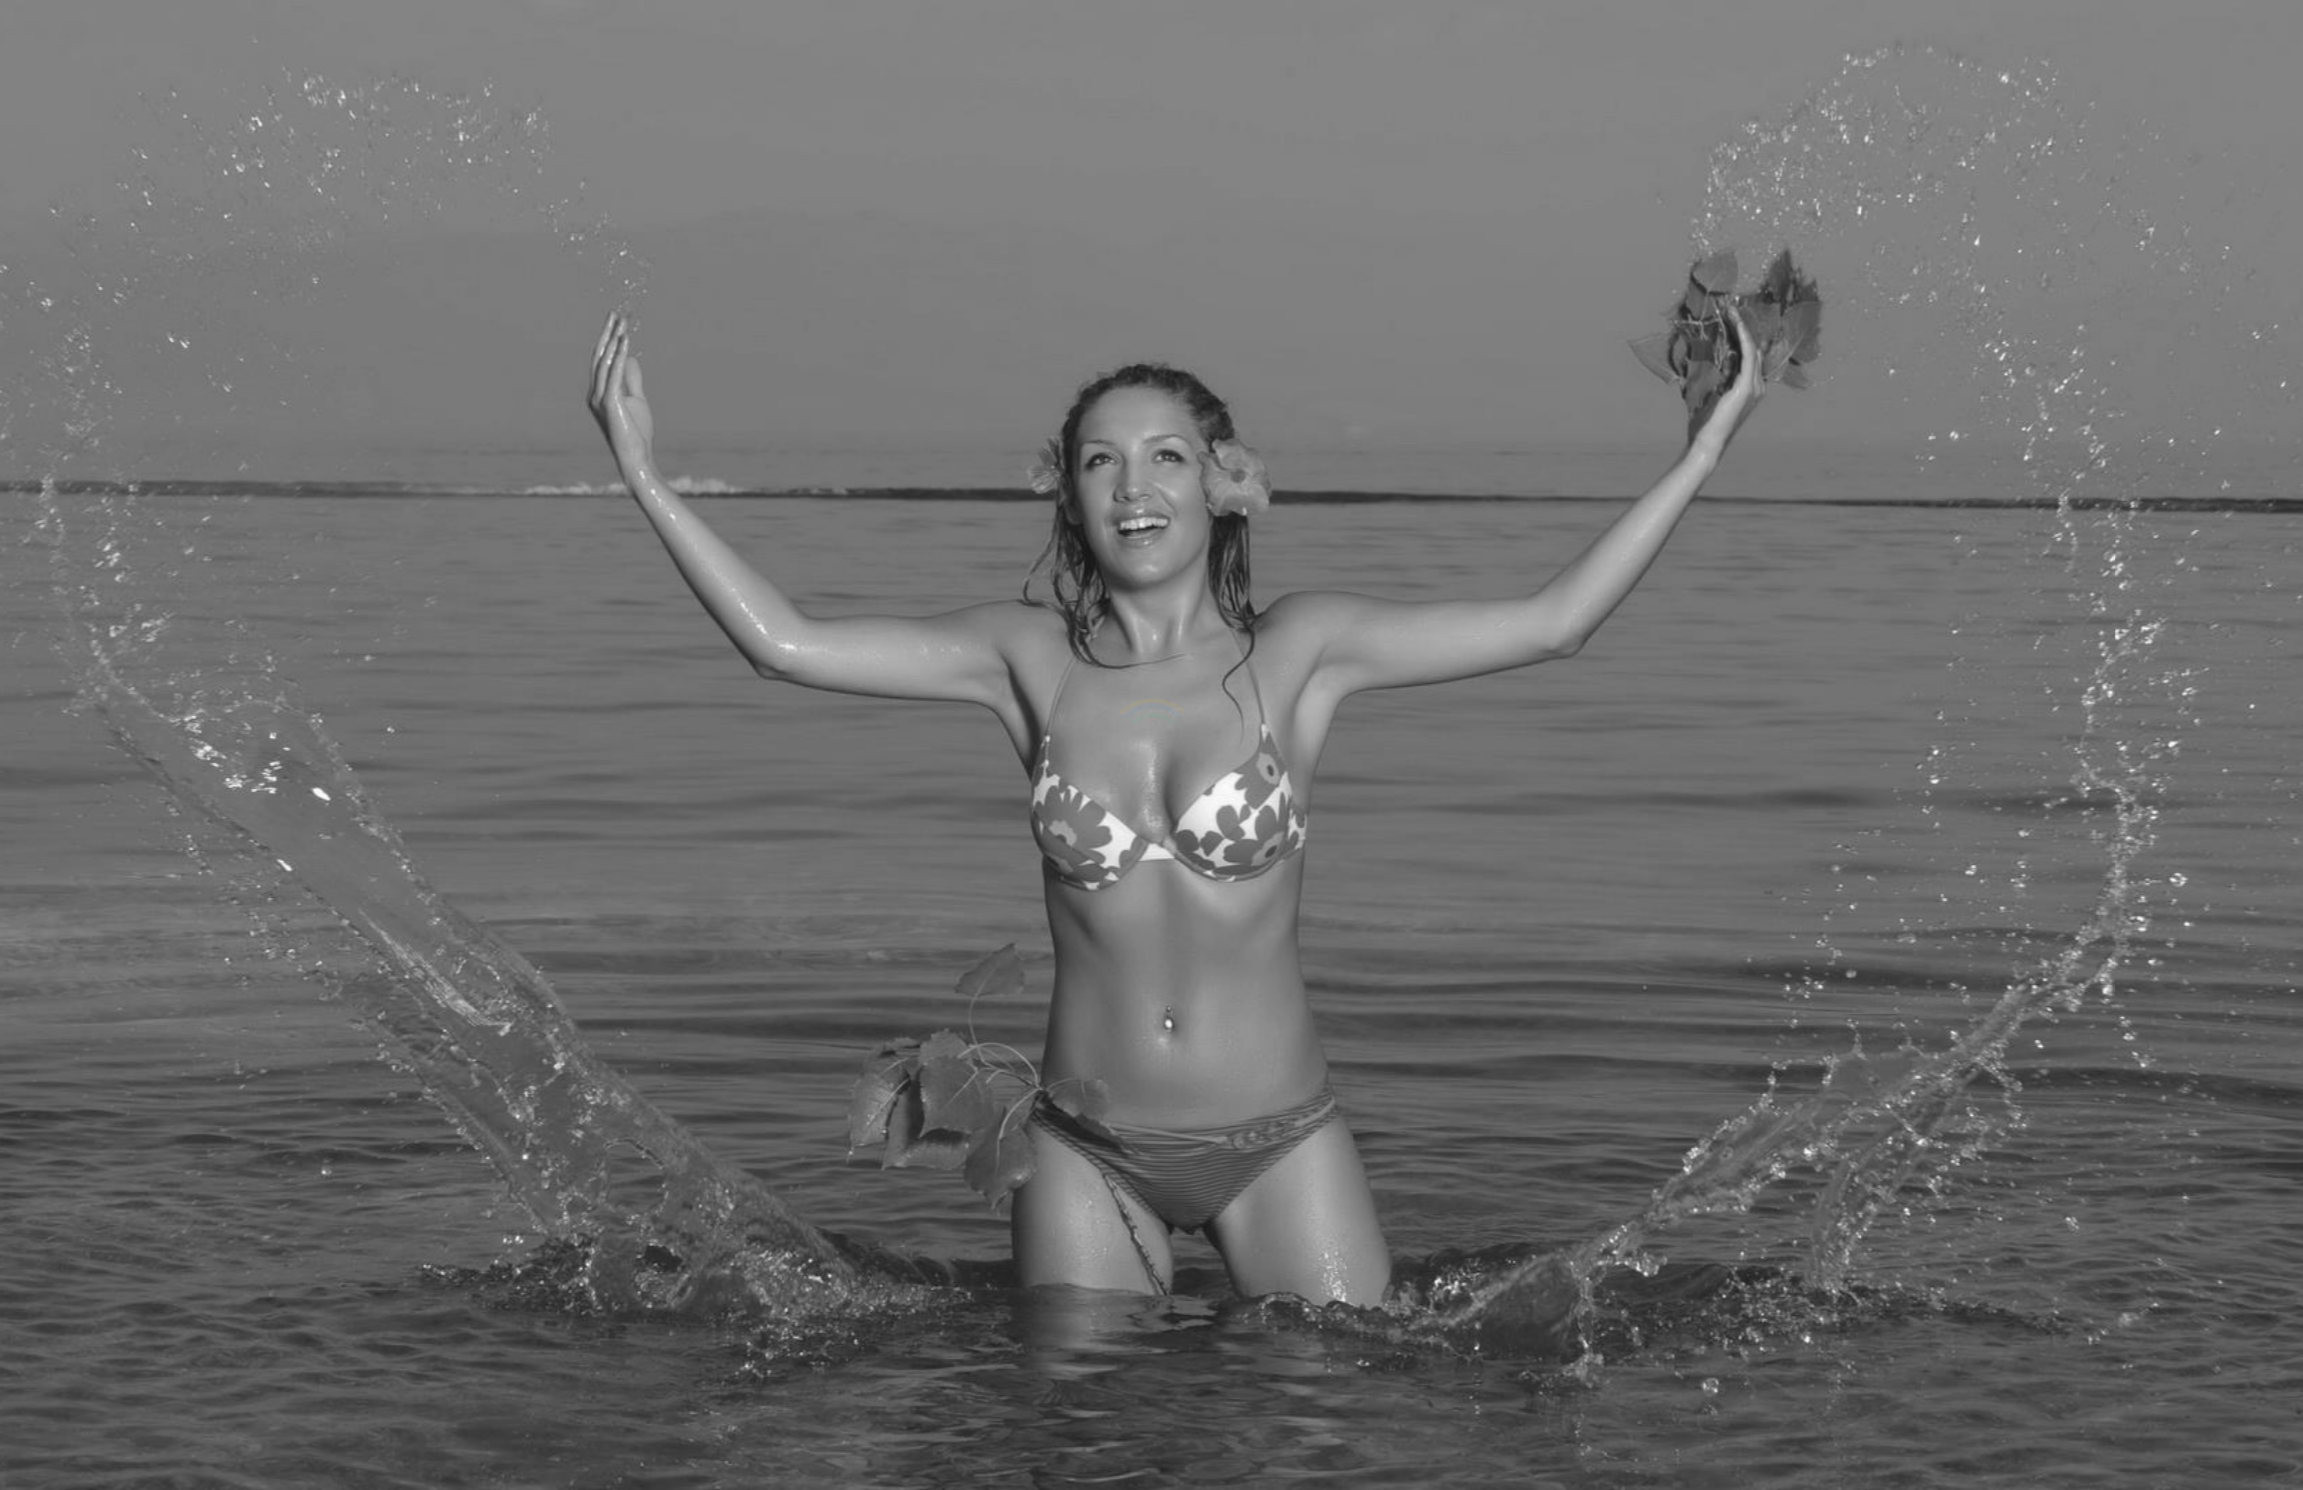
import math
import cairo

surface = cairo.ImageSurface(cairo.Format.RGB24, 2303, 1490)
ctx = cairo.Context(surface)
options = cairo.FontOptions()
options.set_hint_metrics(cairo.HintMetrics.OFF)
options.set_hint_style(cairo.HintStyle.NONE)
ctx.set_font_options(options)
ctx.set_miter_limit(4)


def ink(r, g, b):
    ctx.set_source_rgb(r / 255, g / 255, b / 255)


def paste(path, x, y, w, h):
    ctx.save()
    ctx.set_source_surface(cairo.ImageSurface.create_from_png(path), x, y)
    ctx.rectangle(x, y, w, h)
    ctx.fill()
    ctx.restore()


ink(255, 255, 255)
ctx.paint()
paste("pic1.png", 0, 0, 2303, 1490)
ctx.new_path()
ctx.move_to(1120.5, 713)
ctx.curve_to(1138, 696, 1167, 696, 1184.5, 713)
ctx.set_source_rgba(0.945, 0.769, 0.059, 0.08)
ctx.set_line_width(3.8)
ctx.stroke()
ctx.new_path()
ctx.move_to(1125, 717.5)
ctx.curve_to(1140, 702.5, 1165, 702.5, 1180, 717.5)
ctx.set_source_rgba(0.204, 0.596, 0.859, 0.08)
ctx.stroke()
ctx.new_path()
ctx.move_to(1131.5, 724)
ctx.curve_to(1143, 712, 1162, 712, 1173.5, 724)
ctx.set_source_rgba(0.18, 0.8, 0.443, 0.08)
ctx.stroke()
surface.write_to_png("screenshot.png")
